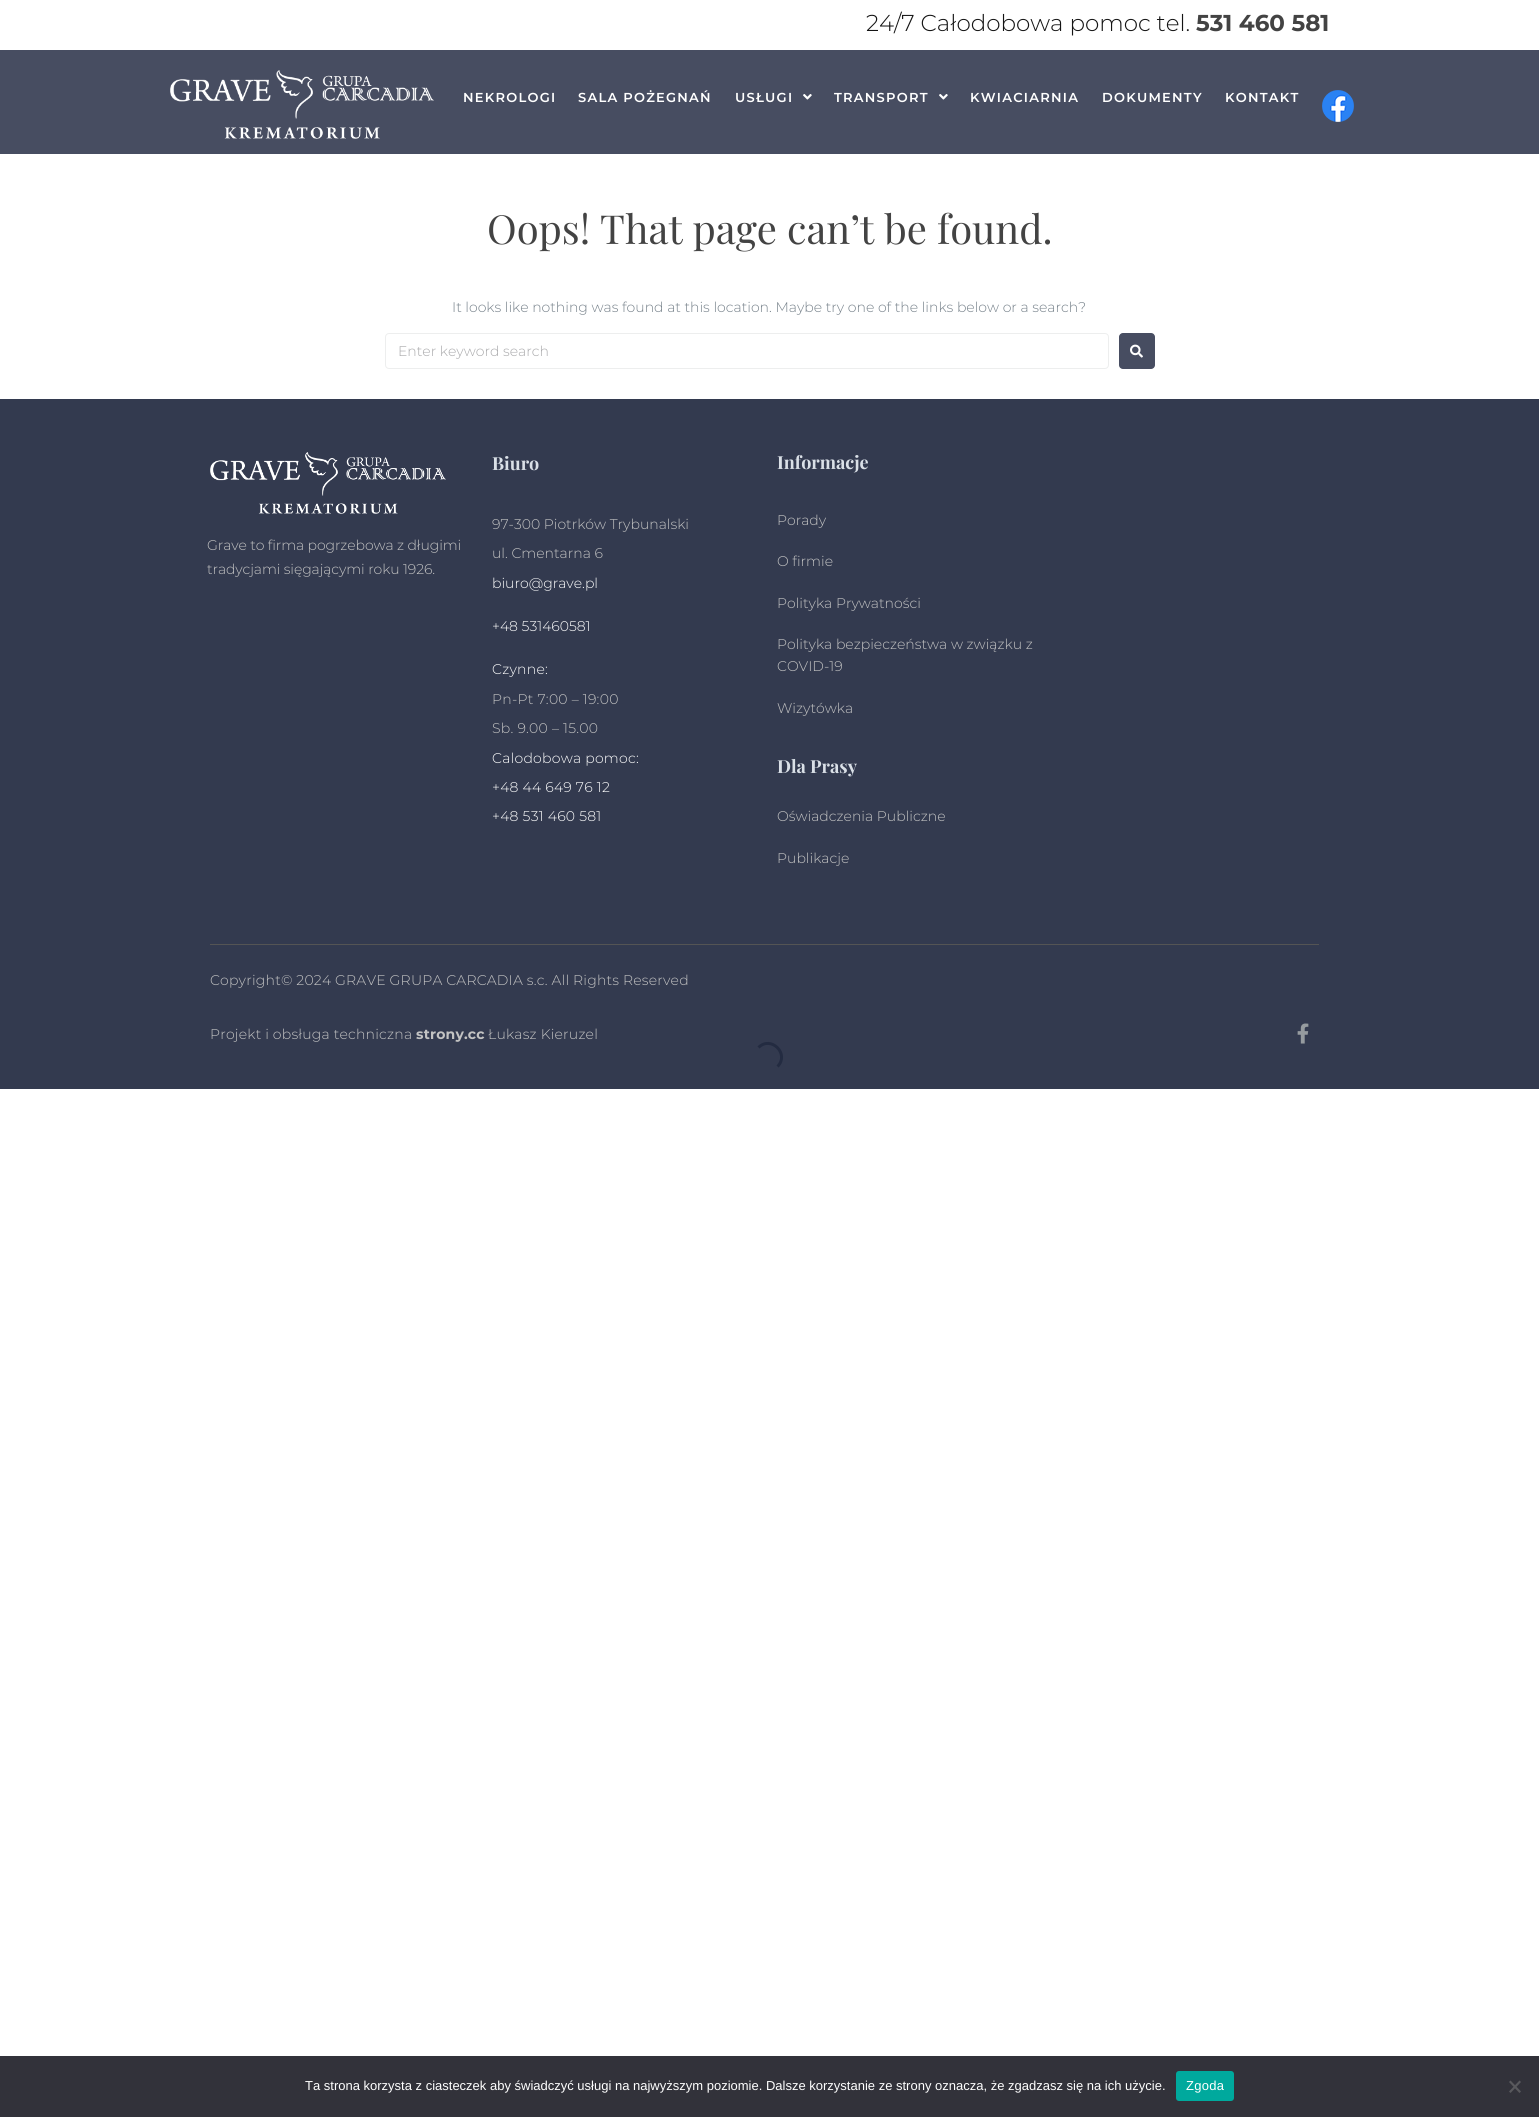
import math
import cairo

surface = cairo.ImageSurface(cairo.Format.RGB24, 1539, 2117)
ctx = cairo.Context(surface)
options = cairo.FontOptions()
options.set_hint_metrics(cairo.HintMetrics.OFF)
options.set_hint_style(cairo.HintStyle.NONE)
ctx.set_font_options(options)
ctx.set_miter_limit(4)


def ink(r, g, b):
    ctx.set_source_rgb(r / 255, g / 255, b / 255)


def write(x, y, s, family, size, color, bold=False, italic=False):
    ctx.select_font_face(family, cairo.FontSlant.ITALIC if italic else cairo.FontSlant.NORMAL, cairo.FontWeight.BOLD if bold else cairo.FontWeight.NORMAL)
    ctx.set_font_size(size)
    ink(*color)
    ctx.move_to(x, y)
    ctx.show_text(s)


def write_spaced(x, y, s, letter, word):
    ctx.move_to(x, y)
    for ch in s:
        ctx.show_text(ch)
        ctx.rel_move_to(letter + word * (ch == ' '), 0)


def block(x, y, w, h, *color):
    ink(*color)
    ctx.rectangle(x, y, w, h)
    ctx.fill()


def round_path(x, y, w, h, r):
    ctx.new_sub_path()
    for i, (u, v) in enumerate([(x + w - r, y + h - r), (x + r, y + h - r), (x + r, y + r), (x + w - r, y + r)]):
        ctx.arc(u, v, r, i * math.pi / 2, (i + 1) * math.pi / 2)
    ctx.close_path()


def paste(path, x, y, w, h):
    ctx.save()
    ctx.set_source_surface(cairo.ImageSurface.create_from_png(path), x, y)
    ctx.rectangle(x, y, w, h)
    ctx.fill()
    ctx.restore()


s1 = dict(family="Montserrat Light", size=23, color=(20, 20, 20))
s2 = dict(family="Montserrat", size=23, color=(67, 67, 67), bold=True)
s3 = dict(family="Playfair Display", size=40, color=(67, 67, 67))
s4 = dict(family="Montserrat Light", size=14, color=(118, 129, 138))
s5 = dict(family="Montserrat Light", size=14, color=(169, 169, 171))
s6 = dict(family="Playfair Display", size=18, color=(218, 224, 231), bold=True)
s7 = dict(family="Montserrat Light", size=14, color=(195, 195, 195))
s8 = dict(family="Montserrat Light", size=14, color=(255, 255, 255))
s9 = dict(family="Liberation Sans", size=13, color=(255, 255, 255))

ink(255, 255, 255)
ctx.paint()
write(866, 31, "24/7 Całodobowa pomoc tel.", **s1)
write(1196, 31, "531 460 581", **s2)
block(0, 50, 1539, 104, 71, 77, 97)
paste("pic1.png", 170, 70, 264, 69)
ctx.select_font_face("Montserrat SemiBold")
ctx.set_font_size(13)
ink(255, 255, 255)
write_spaced(463, 102, "NEKROLOGI", 1.25, 0)
write_spaced(578, 102, "SALA POŻEGNAŃ", 1.25, 0)
write_spaced(735, 102, "USŁUGI", 1.25, 0)
paste("pic2.png", 803, 94, 9, 6)
write_spaced(834, 102, "TRANSPORT", 1.25, 0)
paste("pic2.png", 939, 94, 9, 6)
write_spaced(970, 102, "KWIACIARNIA", 1.25, 0)
write_spaced(1102, 102, "DOKUMENTY", 1.25, 0)
write_spaced(1225, 102, "KONTAKT", 1.25, 0)
paste("pic3.png", 1322, 90, 32, 32)
write(487, 244, "Oops! That page can’t be found.", **s3)
write(452, 312, "It looks like nothing was found at this location. Maybe try one of the links below or a search?", **s4)
round_path(385.5, 333.5, 723, 35, 3.5)
ink(237, 238, 238)
ctx.set_line_width(1)
ctx.stroke()
write(398, 356, "Enter keyword search", **s5)
ink(71, 77, 97)
round_path(1119, 333, 36, 36, 4)
ctx.fill()
paste("pic4.png", 1130, 344, 13, 14)
block(0, 399, 1539, 690, 51, 58, 79)
paste("pic5.png", 210, 452, 236, 62)
ink(195, 195, 195)
write_spaced(207, 550, "Grave to firma pogrzebowa z długimi", -0.1, 0)
write_spaced(207, 574, "tradycjami sięgającymi roku 1926.", -0.1, 0)
write(492, 470, "Biuro", **s6)
write(492, 529, "97-300 Piotrków Trybunalski", **s7)
write(492, 558, "ul. Cmentarna 6", **s7)
write(492, 588, "biuro@grave.pl", **s8)
write(492, 631, "+48 531460581", **s8)
write_spaced(492, 674, "Czynne:", 0.25, 0)
ink(195, 195, 195)
write_spaced(492, 704, "Pn-Pt 7:00 – 19:00", 0.25, 0)
write_spaced(492, 733, "Sb. 9.00 – 15.00", 0.25, 0)
ink(255, 255, 255)
write_spaced(492, 763, "Calodobowa pomoc:", 0.25, 0)
write_spaced(492, 792, "+48 44 649 76 12", 0.25, 0)
write_spaced(492, 821, "+48 531 460 581", 0.25, 0)
write(777, 469, "Informacje", **s6)
write(777, 525, "Porady", **s7)
write(777, 566, "O firmie", **s7)
write(777, 608, "Polityka Prywatności", **s7)
write(777, 649, "Polityka bezpieczeństwa w związku z", **s7)
write(777, 671, "COVID-19", **s7)
write(777, 713, "Wizytówka", **s7)
write(777, 773, "Dla Prasy", **s6)
write(777, 821, "Oświadczenia Publiczne", **s7)
write(777, 863, "Publikacje", **s7)
block(210, 944, 1109, 1, 84, 84, 84)
ink(195, 195, 195)
write_spaced(210, 985, "Copyright© 2024 GRAVE GRUPA CARCADIA s.c. All Rights Reserved", 0.2, 0)
write_spaced(210, 1039, "Projekt i obsługa techniczna", 0.2, 0)
ctx.select_font_face("Montserrat", cairo.FontSlant.NORMAL, cairo.FontWeight.BOLD)
write_spaced(416, 1039, "strony.cc", 0.2, 0)
ctx.select_font_face("Montserrat Light")
write_spaced(488, 1039, "Łukasz Kieruzel", 0.2, 0)
paste("pic6.png", 1297, 1023, 12, 21)
ctx.new_path()
ctx.move_to(758.5, 1047.5)
ctx.curve_to(771, 1035, 790, 1054, 777.5, 1066.5)
ink(35, 43, 65)
ctx.set_line_width(3)
ctx.stroke()
block(0, 2056, 1539, 61, 50, 50, 58)
write(305, 2090, "Ta strona korzysta z ciasteczek aby świadczyć usługi na najwyższym poziomie. Dalsze korzystanie ze strony oznacza, że zgadzasz się na ich użycie.", **s9)
ink(0, 169, 157)
round_path(1176, 2071, 58, 30, 3)
ctx.fill()
ink(255, 255, 255)
write_spaced(1186, 2090, "Zgoda", 0.25, 0)
ink(89, 89, 93)
ctx.new_path()
ctx.move_to(1519.5, 2080.5)
ctx.line_to(1521, 2082)
ctx.line_to(1510.5, 2093)
ctx.line_to(1509, 2091.5)
ctx.close_path()
ctx.fill()
ctx.new_path()
ctx.move_to(1509, 2082)
ctx.line_to(1510.5, 2080.5)
ctx.line_to(1521, 2091.5)
ctx.line_to(1519.5, 2093)
ctx.close_path()
ctx.fill()
surface.write_to_png("screenshot.png")
